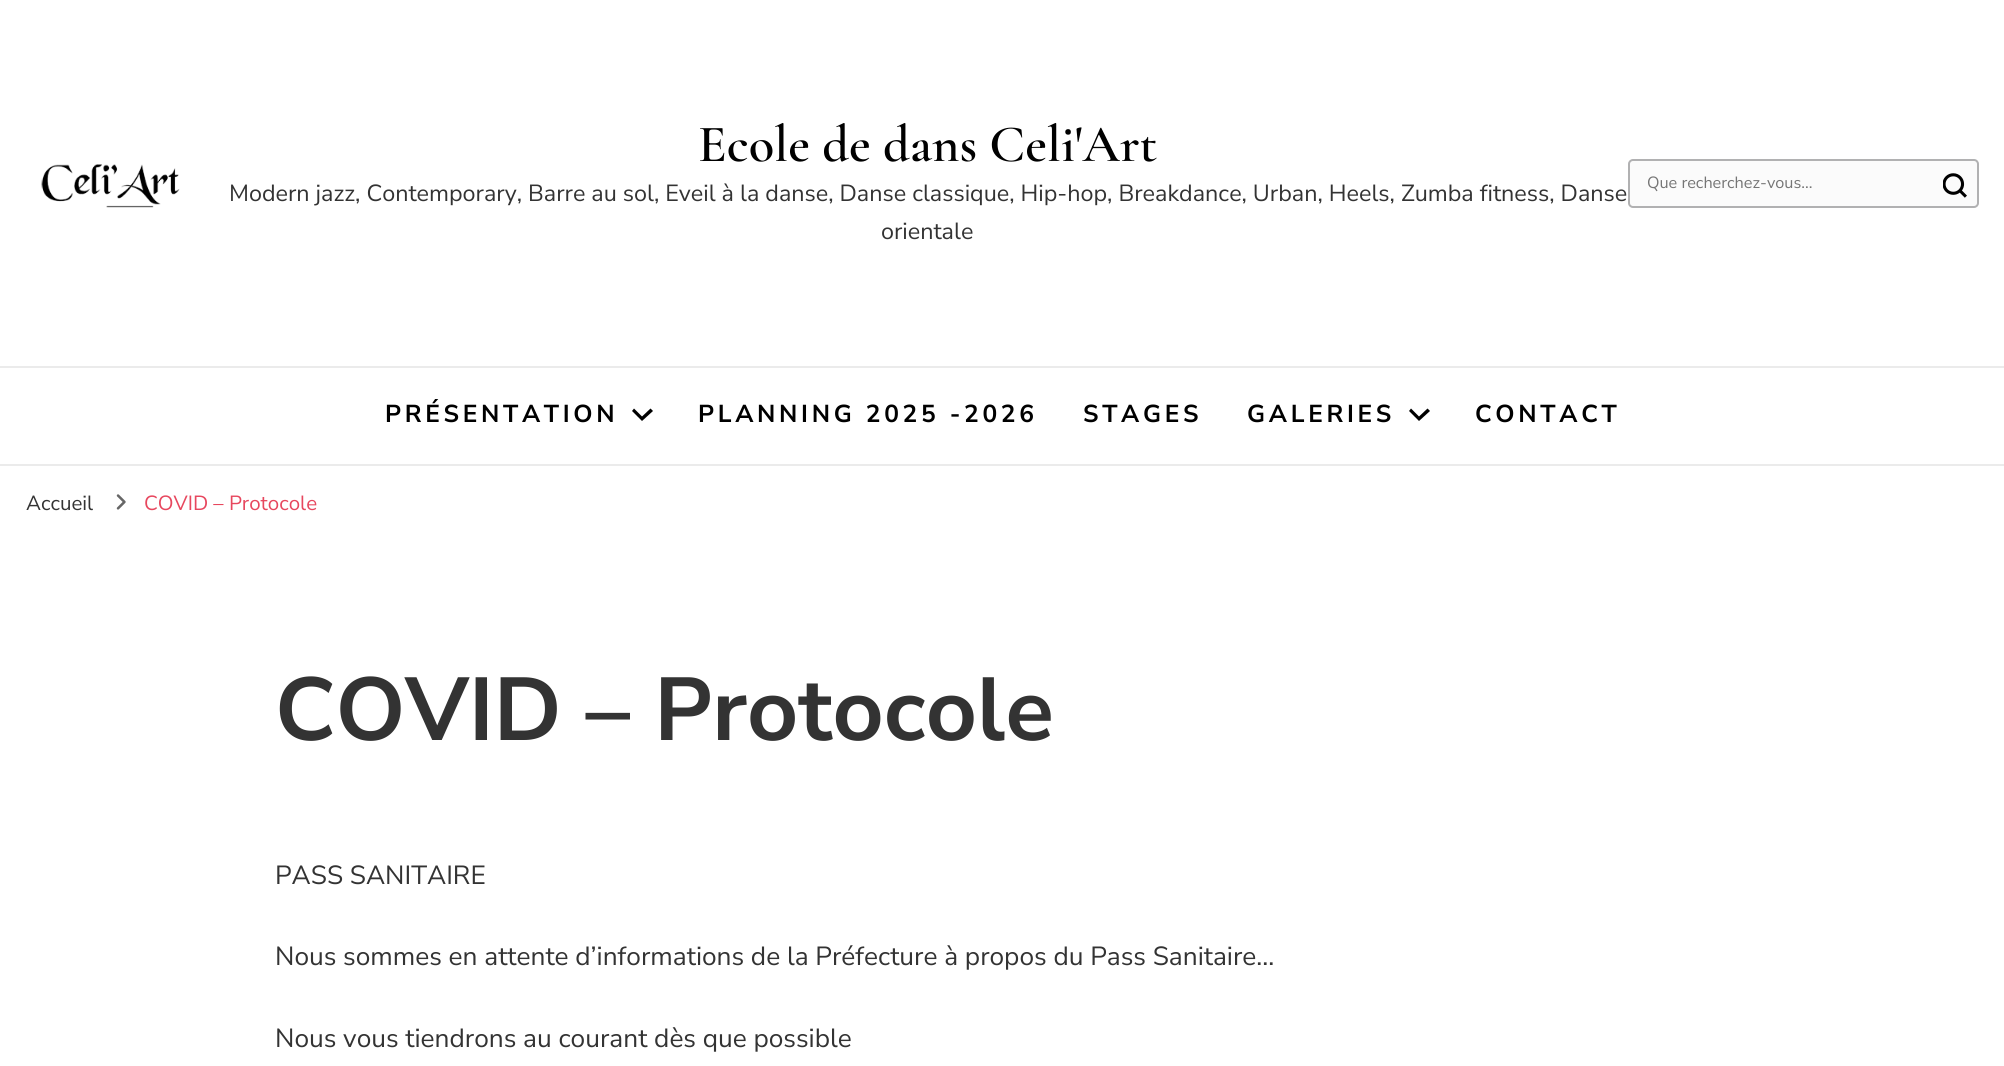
import math
import cairo

surface = cairo.ImageSurface(cairo.Format.RGB24, 2004, 1066)
ctx = cairo.Context(surface)
options = cairo.FontOptions()
options.set_hint_metrics(cairo.HintMetrics.OFF)
options.set_hint_style(cairo.HintStyle.NONE)
ctx.set_font_options(options)
ctx.set_miter_limit(4)


def ink(r, g, b):
    ctx.set_source_rgb(r / 255, g / 255, b / 255)


def write(x, y, s, family, size, color, bold=False, italic=False):
    ctx.select_font_face(family, cairo.FontSlant.ITALIC if italic else cairo.FontSlant.NORMAL, cairo.FontWeight.BOLD if bold else cairo.FontWeight.NORMAL)
    ctx.set_font_size(size)
    ink(*color)
    ctx.move_to(x, y)
    ctx.show_text(s)


def write_spaced(x, y, s, letter, word):
    ctx.move_to(x, y)
    for ch in s:
        ctx.show_text(ch)
        ctx.rel_move_to(letter + word * (ch == ' '), 0)


def block(x, y, w, h, *color):
    ink(*color)
    ctx.rectangle(x, y, w, h)
    ctx.fill()


def round_path(x, y, w, h, r):
    ctx.new_sub_path()
    for i, (u, v) in enumerate([(x + w - r, y + h - r), (x + r, y + h - r), (x + r, y + r), (x + w - r, y + r)]):
        ctx.arc(u, v, r, i * math.pi / 2, (i + 1) * math.pi / 2)
    ctx.close_path()


def paste(path, x, y, w, h):
    ctx.save()
    ctx.set_source_surface(cairo.ImageSurface.create_from_png(path), x, y)
    ctx.rectangle(x, y, w, h)
    ctx.fill()
    ctx.restore()


s1 = dict(family="Cormorant Garamond SemiBold", size=52.5, color=(0, 0, 0))
s2 = dict(family="Nunito Sans", size=23.35, color=(51, 51, 51))
s3 = dict(family="Nunito Sans", size=16.25, color=(117, 117, 117))
s4 = dict(family="Nunito Sans", size=20.5, color=(51, 51, 51))
s5 = dict(family="Nunito Sans", size=20.5, color=(231, 71, 94))
s6 = dict(family="Nunito Sans", size=89, color=(51, 51, 51), bold=True)
s7 = dict(family="Nunito Sans", size=26.25, color=(51, 51, 51))

ink(255, 255, 255)
ctx.paint()
block(0, 464, 2004, 2, 235, 235, 235)
paste("pic1.png", 41, 164, 139, 44)
write(698, 161, "Ecole de dans Celi'Art", **s1)
write(229, 201, "Modern jazz, Contemporary, Barre au sol, Eveil à la danse, Danse classique, Hip-hop, Breakdance, Urban, Heels, Zumba fitness, Danse", **s2)
write(881, 239, "orientale", **s2)
ink(251, 251, 251)
round_path(1629, 160, 349, 47, 4)
ctx.fill_preserve()
ink(177, 177, 178)
ctx.stroke()
write(1647, 188, "Que recherchez-vous...", **s3)
paste("pic2.png", 1943, 173, 24, 25)
block(0, 366, 2004, 2, 235, 235, 235)
ctx.select_font_face("Nunito Sans", cairo.FontSlant.NORMAL, cairo.FontWeight.BOLD)
ctx.set_font_size(24.5)
ink(0, 0, 0)
write_spaced(385, 422, "PRÉSENTATION", 3.7, 0)
ctx.new_path()
ctx.move_to(650.5, 408.5)
ctx.line_to(653, 411)
ctx.line_to(642, 421)
ctx.line_to(632, 411)
ctx.line_to(634, 408.5)
ctx.line_to(642, 416.5)
ctx.close_path()
ctx.fill()
write_spaced(698, 422, "PLANNING 2025 -2026", 3.7, 0)
write_spaced(1083, 422, "STAGES", 3.7, 0)
write_spaced(1247, 422, "GALERIES", 3.7, 0)
ctx.new_path()
ctx.move_to(1427.5, 408.5)
ctx.line_to(1430, 411)
ctx.line_to(1419, 421)
ctx.line_to(1409, 411)
ctx.line_to(1411, 408.5)
ctx.line_to(1419, 416.5)
ctx.close_path()
ctx.fill()
write_spaced(1475, 422, "CONTACT", 3.7, 0)
write(26, 510, "Accueil", **s4)
paste("pic3.png", 116, 494, 10, 16)
write(144, 510, "COVID – Protocole", **s5)
write(275, 740, "COVID – Protocole", **s6)
write(275, 884, "PASS SANITAIRE", **s7)
write(275, 965, "Nous sommes en attente d’informations de la Préfecture à propos du Pass Sanitaire…", **s7)
write(275, 1047, "Nous vous tiendrons au courant dès que possible", **s7)
surface.write_to_png("screenshot.png")
